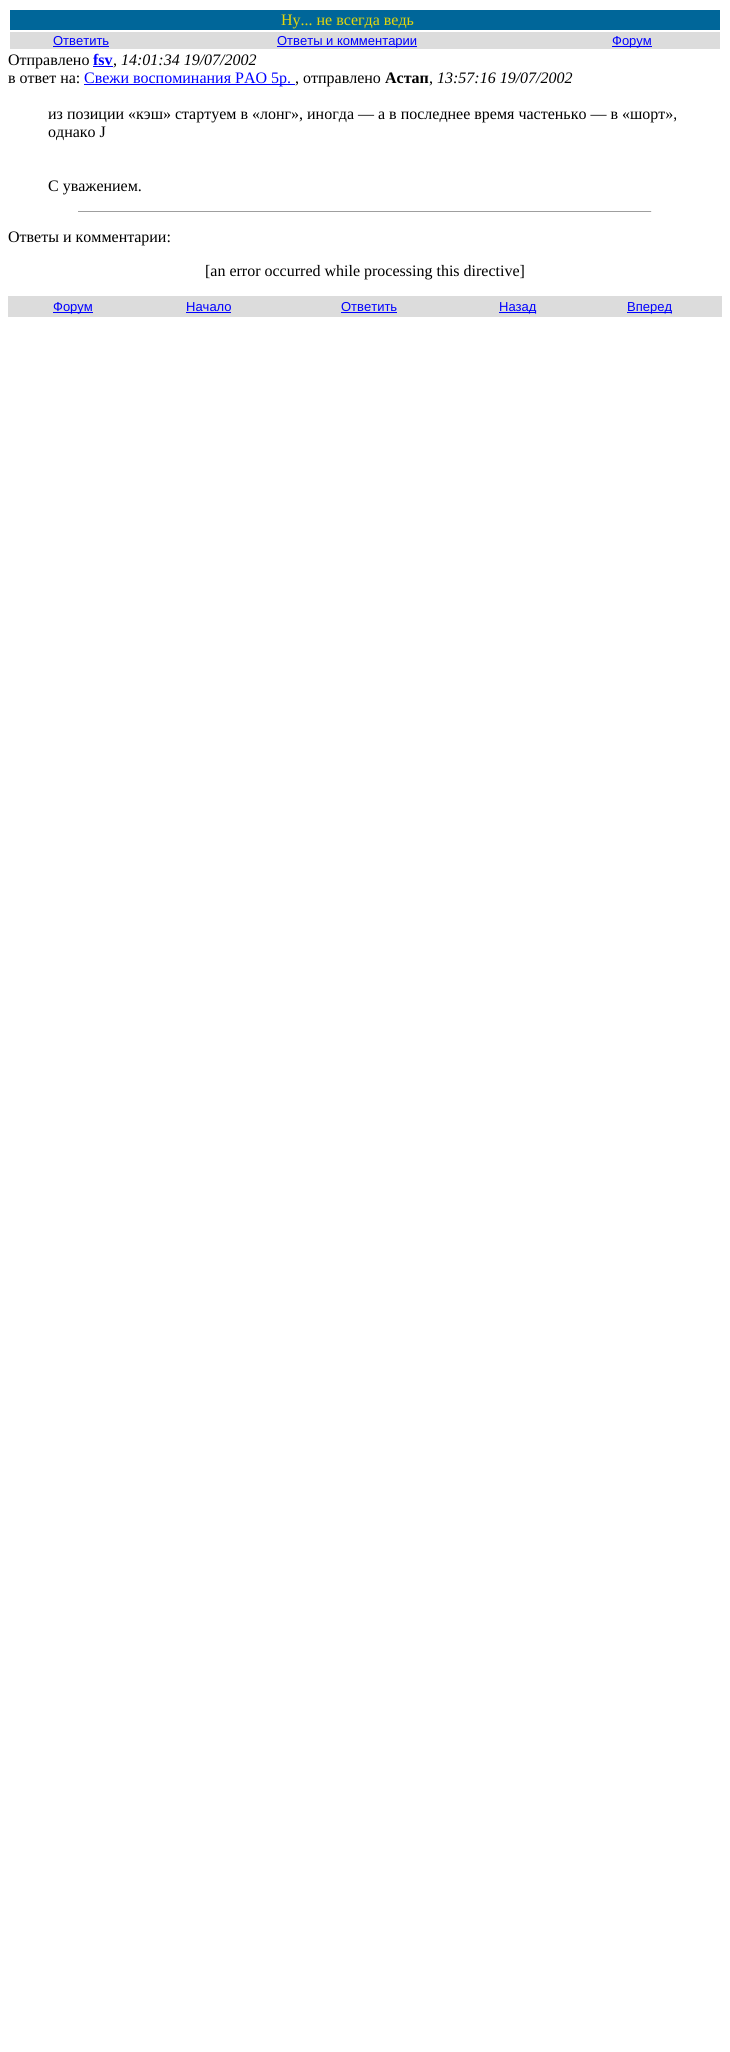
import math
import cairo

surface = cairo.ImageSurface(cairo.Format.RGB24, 730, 2052)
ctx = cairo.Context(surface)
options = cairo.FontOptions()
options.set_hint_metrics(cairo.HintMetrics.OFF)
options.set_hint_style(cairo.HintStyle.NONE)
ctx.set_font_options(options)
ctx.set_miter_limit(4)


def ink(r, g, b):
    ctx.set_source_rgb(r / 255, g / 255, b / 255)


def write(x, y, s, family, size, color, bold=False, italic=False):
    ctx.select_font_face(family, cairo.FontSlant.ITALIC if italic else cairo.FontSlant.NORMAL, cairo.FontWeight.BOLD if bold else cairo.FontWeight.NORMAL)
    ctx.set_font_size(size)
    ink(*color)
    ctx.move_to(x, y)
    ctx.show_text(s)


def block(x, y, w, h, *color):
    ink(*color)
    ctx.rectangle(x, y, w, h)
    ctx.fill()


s1 = dict(family="Liberation Serif", size=16, color=(228, 214, 11))
s2 = dict(family="Liberation Sans", size=13, color=(0, 0, 255))
s3 = dict(family="Liberation Serif", size=16, color=(0, 0, 0))
s4 = dict(family="Liberation Serif", size=16, color=(0, 0, 255), bold=True)
s5 = dict(family="Liberation Serif", size=16, color=(0, 0, 0), italic=True)
s6 = dict(family="Liberation Serif", size=16, color=(0, 0, 255))
s7 = dict(family="Liberation Serif", size=16, color=(0, 0, 0), bold=True)

ink(255, 255, 255)
ctx.paint()
block(10, 10, 710, 20, 0, 102, 153)
write(281, 25, "Ну... не всегда ведь", **s1)
block(10, 32, 710, 17, 220, 220, 220)
write(53, 45, "Ответить", **s2)
block(53, 46, 56, 1, 0, 0, 255)
block(277, 46, 140, 1, 0, 0, 255)
write(277, 45, "Ответы и комментарии", **s2)
block(612, 46, 40, 1, 0, 0, 255)
write(612, 45, "Форум", **s2)
write(8, 65, "Отправлено", **s3)
write(93, 65, "fsv", **s4)
block(93, 66, 20, 1, 0, 0, 255)
write(113, 65, ",", **s3)
write(121, 65, "14:01:34 19/07/2002", **s5)
write(8, 83, "в ответ на:", **s3)
block(84, 84, 211, 1, 0, 0, 255)
write(84, 83, "Свежи воспоминания РАО 5р.", **s6)
write(295, 83, ", отправлено", **s3)
write(385, 83, "Астап", **s7)
write(429, 83, ",", **s3)
write(437, 83, "13:57:16 19/07/2002", **s5)
write(48, 119, "из позиции «кэш» стартуем в «лонг», иногда — а в последнее время частенько — в «шорт»,", **s3)
write(48, 137, "однако J", **s3)
write(48, 191, "С уважением.", **s3)
block(78, 211, 574, 1, 159, 159, 159)
block(651, 211, 1, 1, 238, 238, 238)
write(8, 242, "Ответы и комментарии:", **s3)
write(205, 276, "[an error occurred while processing this directive]", **s3)
block(8, 296, 714, 21, 220, 220, 220)
block(53, 312, 40, 1, 0, 0, 255)
write(53, 311, "Форум", **s2)
write(186, 311, "Начало", **s2)
block(186, 312, 45, 1, 0, 0, 255)
write(341, 311, "Ответить", **s2)
block(341, 312, 56, 1, 0, 0, 255)
block(499, 312, 37, 1, 0, 0, 255)
write(499, 311, "Назад", **s2)
block(627, 312, 45, 1, 0, 0, 255)
write(627, 311, "Вперед", **s2)
surface.write_to_png("screenshot.png")
